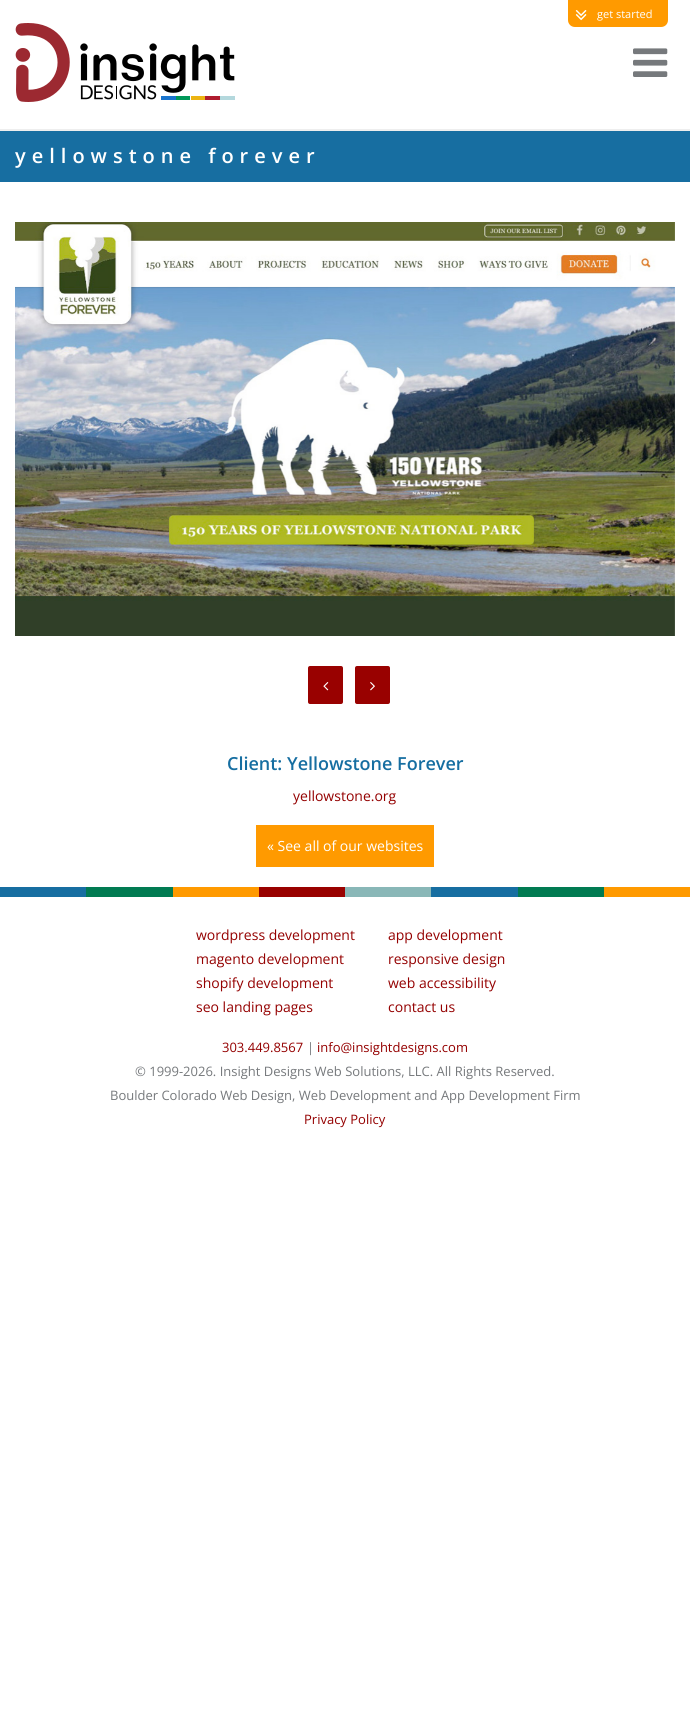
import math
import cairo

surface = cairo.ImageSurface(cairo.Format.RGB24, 690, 1734)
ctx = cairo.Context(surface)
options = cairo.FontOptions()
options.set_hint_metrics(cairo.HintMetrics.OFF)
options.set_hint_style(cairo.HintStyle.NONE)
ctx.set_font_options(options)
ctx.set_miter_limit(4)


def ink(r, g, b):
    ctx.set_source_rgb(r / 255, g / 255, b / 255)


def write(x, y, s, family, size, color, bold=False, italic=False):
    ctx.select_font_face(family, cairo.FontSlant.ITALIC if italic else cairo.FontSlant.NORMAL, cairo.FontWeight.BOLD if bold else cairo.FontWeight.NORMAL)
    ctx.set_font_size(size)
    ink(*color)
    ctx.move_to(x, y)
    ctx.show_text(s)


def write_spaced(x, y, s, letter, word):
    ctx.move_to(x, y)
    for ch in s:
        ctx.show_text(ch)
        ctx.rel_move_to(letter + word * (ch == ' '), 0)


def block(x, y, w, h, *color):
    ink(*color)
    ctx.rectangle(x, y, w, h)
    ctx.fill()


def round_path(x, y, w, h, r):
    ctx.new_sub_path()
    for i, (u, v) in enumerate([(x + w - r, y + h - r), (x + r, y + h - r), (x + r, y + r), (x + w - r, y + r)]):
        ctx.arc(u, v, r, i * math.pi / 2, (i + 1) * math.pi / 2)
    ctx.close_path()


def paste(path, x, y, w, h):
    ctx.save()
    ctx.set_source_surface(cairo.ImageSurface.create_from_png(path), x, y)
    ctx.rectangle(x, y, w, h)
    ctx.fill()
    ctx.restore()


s1 = dict(family="Open Sans", size=11, color=(255, 255, 255))
s2 = dict(family="Open Sans SemiBold", size=18, color=(22, 110, 161))
s3 = dict(family="Open Sans", size=14, color=(148, 0, 0))
s4 = dict(family="Open Sans", size=14, color=(255, 255, 255))
s5 = dict(family="Open Sans", size=13, color=(148, 0, 0))
s6 = dict(family="Open Sans", size=13, color=(118, 121, 124))

ink(255, 255, 255)
ctx.paint()
ink(255, 154, 0)
ctx.new_path()
ctx.move_to(568, 0)
ctx.line_to(668, 0)
ctx.line_to(668, 20)
ctx.curve_to(668, 24, 665, 27, 661, 27)
ctx.line_to(575, 27)
ctx.curve_to(571, 27, 568, 24, 568, 20)
ctx.close_path()
ctx.fill()
paste("pic1.png", 575, 10, 12, 11)
write(597, 18, "get started", **s1)
paste("pic2.png", 15, 23, 220, 79)
paste("pic3.png", 633, 48, 35, 29)
block(0, 129, 690, 2, 238, 238, 238)
block(0, 131, 690, 51, 23, 110, 161)
ctx.select_font_face("Open Sans SemiBold")
ctx.set_font_size(20)
ink(255, 255, 255)
write_spaced(15, 163, "yellowstone forever", 6, 0)
paste("pic4.png", 15, 222, 660, 414)
ink(153, 1, 0)
round_path(308, 666, 35, 38, 2)
ctx.fill()
paste("pic5.png", 323, 682, 6, 9)
round_path(355, 666, 35, 38, 2)
ctx.fill()
paste("pic6.png", 370, 682, 5, 9)
write(227, 770, "Client: Yellowstone Forever", **s2)
write(293, 801, "yellowstone.org", **s3)
block(256, 825, 178, 42, 255, 154, 0)
write(267, 851, "« See all of our websites", **s4)
block(0, 887, 86, 10, 23, 110, 161)
block(86, 887, 87, 10, 1, 123, 82)
block(173, 887, 86, 10, 255, 154, 0)
block(259, 887, 86, 10, 153, 1, 0)
block(345, 887, 86, 10, 137, 183, 183)
block(431, 887, 87, 10, 23, 110, 161)
block(518, 887, 86, 10, 1, 123, 82)
block(604, 887, 86, 10, 255, 154, 0)
write(196, 940, "wordpress development", **s3)
write(196, 964, "magento development", **s3)
write(196, 988, "shopify development", **s3)
write(196, 1012, "seo landing pages", **s3)
write(388, 940, "app development", **s3)
write(388, 964, "responsive design", **s3)
write(388, 988, "web accessibility", **s3)
write(388, 1012, "contact us", **s3)
write(222, 1052, "303.449.8567", **s5)
write(307, 1052, "|", **s6)
write(317, 1052, "info@insightdesigns.com", **s5)
write(135, 1076, "© 1999-2026. Insight Designs Web Solutions, LLC. All Rights Reserved.", **s6)
write(110, 1100, "Boulder Colorado Web Design, Web Development and App Development Firm", **s6)
write(304, 1124, "Privacy Policy", **s5)
surface.write_to_png("screenshot.png")
